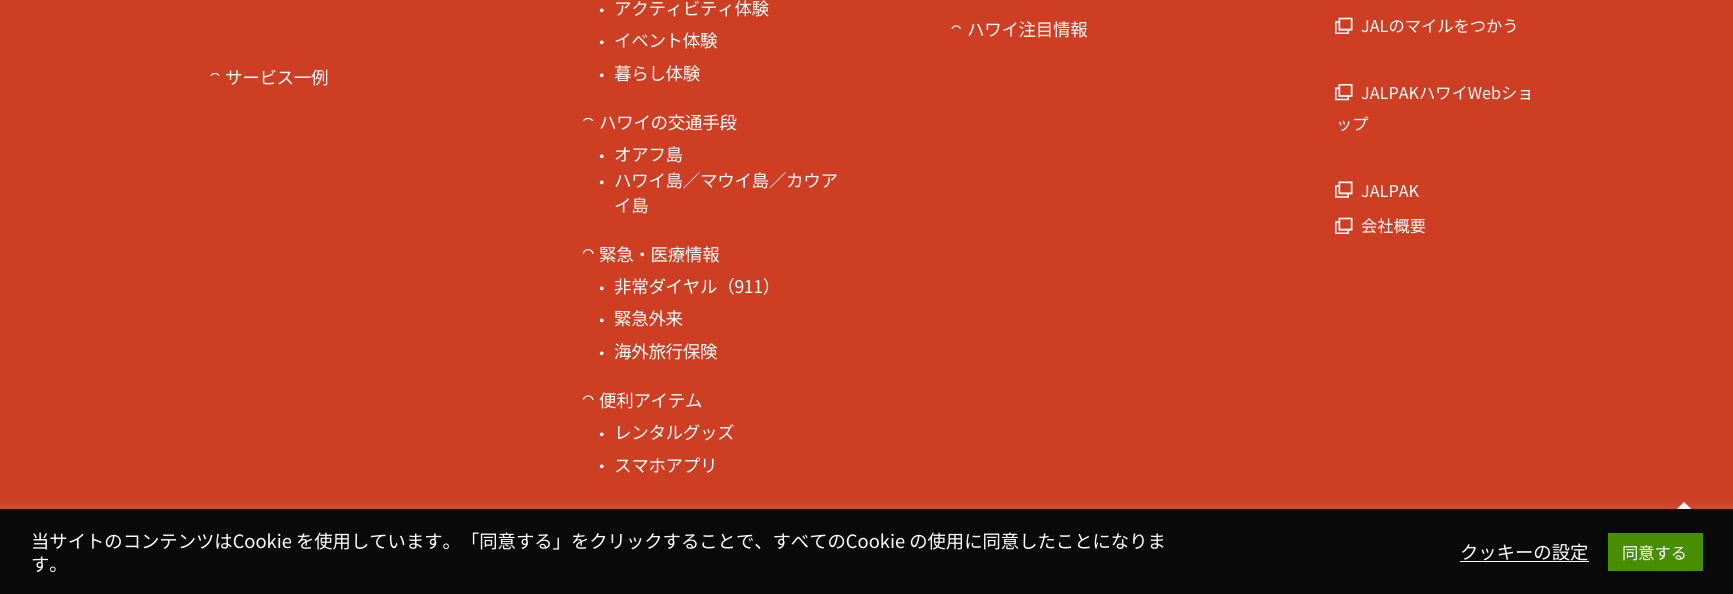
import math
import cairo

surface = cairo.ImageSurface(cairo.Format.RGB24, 1733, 594)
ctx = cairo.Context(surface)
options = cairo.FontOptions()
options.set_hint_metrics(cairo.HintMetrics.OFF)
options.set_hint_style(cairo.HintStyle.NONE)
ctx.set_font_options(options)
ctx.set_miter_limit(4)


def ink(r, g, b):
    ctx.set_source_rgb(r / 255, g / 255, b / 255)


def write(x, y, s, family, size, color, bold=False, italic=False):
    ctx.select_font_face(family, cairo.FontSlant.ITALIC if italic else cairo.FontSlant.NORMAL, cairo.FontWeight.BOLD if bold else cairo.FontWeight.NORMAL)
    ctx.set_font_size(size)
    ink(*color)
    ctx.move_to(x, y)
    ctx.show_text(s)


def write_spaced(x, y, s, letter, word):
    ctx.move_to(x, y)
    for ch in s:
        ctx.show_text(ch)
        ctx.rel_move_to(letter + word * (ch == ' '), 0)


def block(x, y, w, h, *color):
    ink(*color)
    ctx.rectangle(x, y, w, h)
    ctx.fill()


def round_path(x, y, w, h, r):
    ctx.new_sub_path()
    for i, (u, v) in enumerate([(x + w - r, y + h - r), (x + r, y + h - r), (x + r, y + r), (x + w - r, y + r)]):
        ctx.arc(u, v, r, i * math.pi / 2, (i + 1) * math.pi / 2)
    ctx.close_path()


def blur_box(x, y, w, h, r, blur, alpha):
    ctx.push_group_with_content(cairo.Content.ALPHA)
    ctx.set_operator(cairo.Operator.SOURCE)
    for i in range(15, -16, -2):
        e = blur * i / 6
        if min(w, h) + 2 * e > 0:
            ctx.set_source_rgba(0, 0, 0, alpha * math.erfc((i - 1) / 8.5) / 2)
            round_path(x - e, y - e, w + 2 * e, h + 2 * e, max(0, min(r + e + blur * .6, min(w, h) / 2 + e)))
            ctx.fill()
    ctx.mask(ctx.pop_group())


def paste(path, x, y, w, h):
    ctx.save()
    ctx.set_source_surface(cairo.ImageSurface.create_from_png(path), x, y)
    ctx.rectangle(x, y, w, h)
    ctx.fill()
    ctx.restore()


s1 = dict(family="Noto Sans JP", size=16.25, color=(255, 255, 255))
s2 = dict(family="Noto Sans JP", size=18.33, color=(255, 255, 255))

ink(206, 62, 35)
ctx.paint()
ctx.select_font_face("Noto Sans JP")
ctx.set_font_size(17.5)
ink(255, 255, 255)
write_spaced(593, 17, "・", -0.3, 0)
write_spaced(614, 15, "アクティビティ体験", -0.3, 0)
write_spaced(593, 49, "・", -0.3, 0)
write_spaced(614, 47, "イベント体験", -0.3, 0)
write_spaced(593, 82, "・", -0.3, 0)
write_spaced(614, 80, "暮らし体験", -0.3, 0)
paste("pic1.png", 583, 118, 11, 3)
write_spaced(599, 129, "ハワイの交通手段", -0.3, 0)
write_spaced(593, 163, "・", -0.3, 0)
write_spaced(614, 161, "オアフ島", -0.3, 0)
write_spaced(593, 189, "・", -0.3, 0)
write_spaced(614, 187, "ハワイ島／マウイ島／カウア", -0.3, 0)
write_spaced(614, 212, "イ島", -0.3, 0)
paste("pic2.png", 583, 249, 11, 5)
write_spaced(599, 261, "緊急・医療情報", -0.3, 0)
write_spaced(593, 295, "・", -0.3, 0)
write_spaced(614, 293, "非常ダイヤル（911）", -0.3, 0)
write_spaced(593, 327, "・", -0.3, 0)
write_spaced(614, 325, "緊急外来", -0.3, 0)
write_spaced(593, 360, "・", -0.3, 0)
write_spaced(614, 358, "海外旅行保険", -0.3, 0)
paste("pic3.png", 583, 395, 11, 5)
write_spaced(599, 407, "便利アイテム", -0.3, 0)
write_spaced(593, 441, "・", -0.3, 0)
write_spaced(614, 439, "レンタルグッズ", -0.3, 0)
write_spaced(593, 473, "・", -0.3, 0)
write_spaced(614, 472, "スマホアプリ", -0.3, 0)
paste("pic4.png", 951, 25, 10, 4)
write_spaced(967, 36, "ハワイ注目情報", -0.3, 0)
paste("pic5.png", 1335, 17, 18, 17)
write(1361, 32, "JALのマイルをつかう", **s1)
paste("pic6.png", 1335, 84, 18, 17)
write(1361, 99, "JALPAKハワイWebショ", **s1)
write(1336, 130, "ップ", **s1)
paste("pic7.png", 1335, 181, 18, 17)
write(1361, 197, "JALPAK", **s1)
paste("pic5.png", 1335, 217, 18, 17)
write(1361, 232, "会社概要", **s1)
paste("pic8.png", 210, 73, 10, 3)
ctx.set_font_size(17.5)
write_spaced(225, 84, "サービス一例", -0.3, 0)
ctx.set_fill_rule(cairo.FillRule.EVEN_ODD)
ctx.new_path()
ctx.move_to(1701, 529)
ctx.line_to(1684, 513)
ctx.line_to(1668, 529)
ctx.line_to(1663, 523)
ctx.line_to(1684, 502)
ctx.line_to(1706, 523)
ctx.close_path()
ctx.fill()
ink(172, 171, 171)
blur_box(0, 508, 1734, 86, 0, 6, 0.3)
block(0, 509, 1733, 85, 10, 10, 10)
write(31, 548, "当サイトのコンテンツはCookie を使用しています。「同意する」をクリックすることで、すべてのCookie の使用に同意したことになりま", **s2)
write(31, 571, "す。", **s2)
write(1460, 559, "クッキーの設定", **s2)
block(1460, 561, 129, 1, 255, 255, 255)
block(1608, 533, 95, 38, 71, 142, 4)
write(1622, 559, "同意する", **s1)
surface.write_to_png("screenshot.png")
